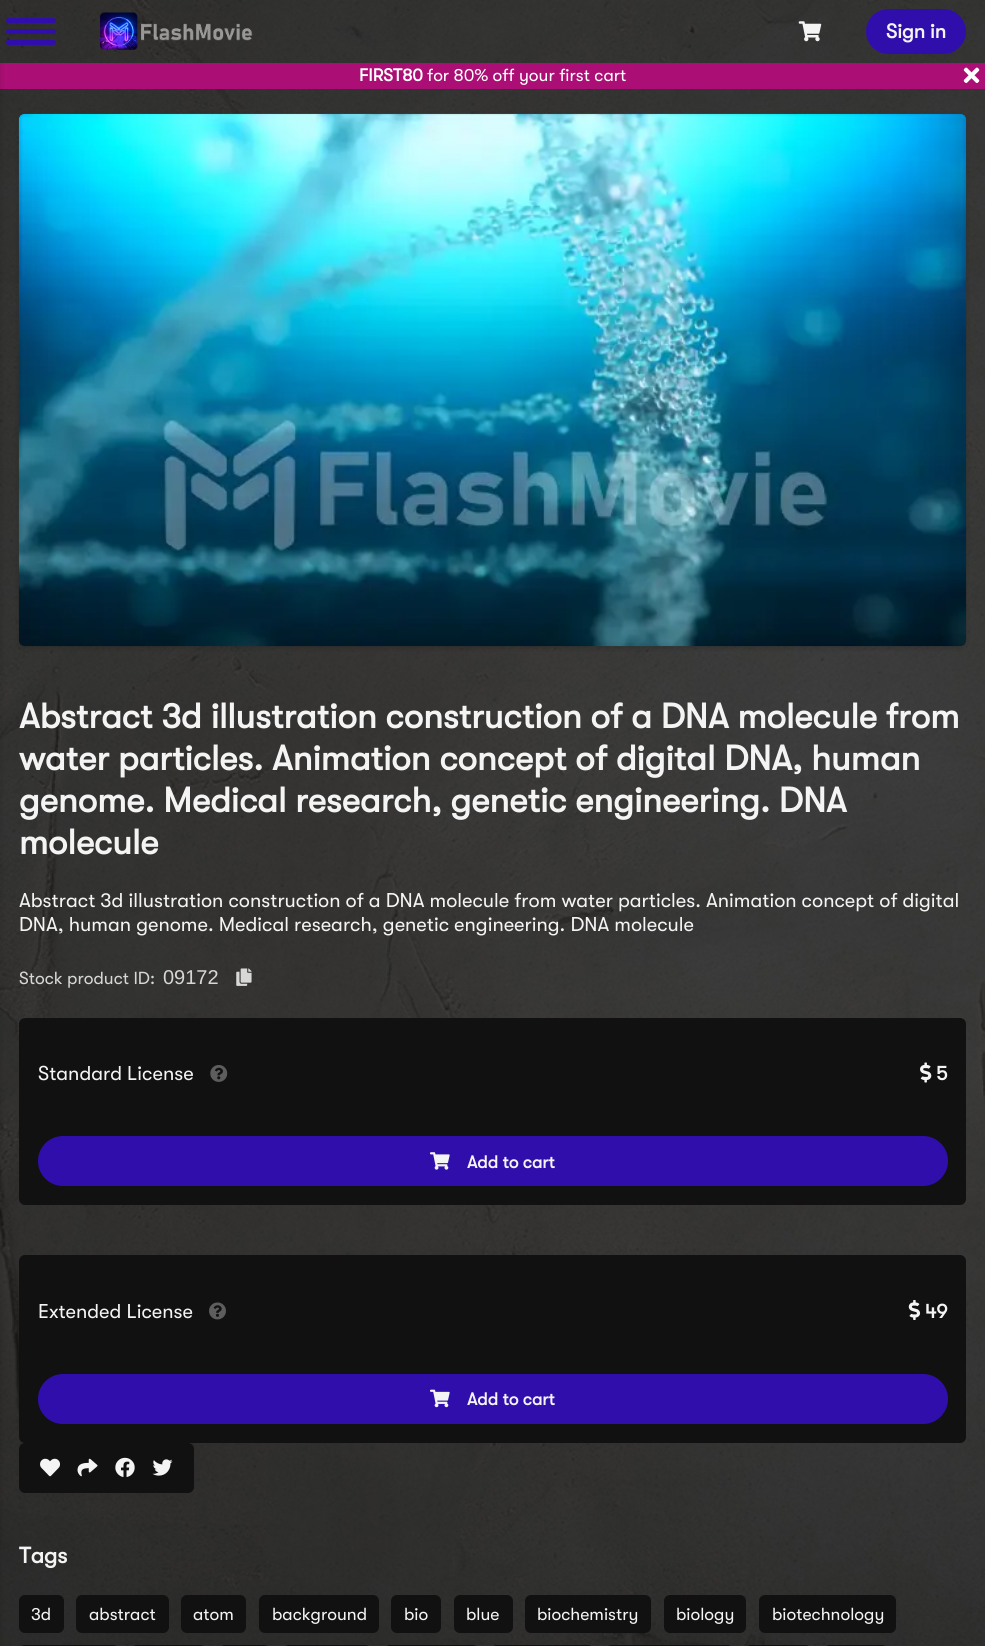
import math
import cairo

surface = cairo.ImageSurface(cairo.Format.RGB24, 985, 1646)
ctx = cairo.Context(surface)
options = cairo.FontOptions()
options.set_hint_metrics(cairo.HintMetrics.OFF)
options.set_hint_style(cairo.HintStyle.NONE)
ctx.set_font_options(options)
ctx.set_miter_limit(4)


def ink(r, g, b):
    ctx.set_source_rgb(r / 255, g / 255, b / 255)


def write(x, y, s, family, size, color, bold=False, italic=False):
    ctx.select_font_face(family, cairo.FontSlant.ITALIC if italic else cairo.FontSlant.NORMAL, cairo.FontWeight.BOLD if bold else cairo.FontWeight.NORMAL)
    ctx.set_font_size(size)
    ink(*color)
    ctx.move_to(x, y)
    ctx.show_text(s)


def block(x, y, w, h, *color):
    ink(*color)
    ctx.rectangle(x, y, w, h)
    ctx.fill()


def round_path(x, y, w, h, r):
    ctx.new_sub_path()
    for i, (u, v) in enumerate([(x + w - r, y + h - r), (x + r, y + h - r), (x + r, y + r), (x + w - r, y + r)]):
        ctx.arc(u, v, r, i * math.pi / 2, (i + 1) * math.pi / 2)
    ctx.close_path()


def blur_box(x, y, w, h, r, blur, alpha):
    ctx.push_group_with_content(cairo.Content.ALPHA)
    ctx.set_operator(cairo.Operator.SOURCE)
    for i in range(15, -16, -2):
        e = blur * i / 6
        if min(w, h) + 2 * e > 0:
            ctx.set_source_rgba(0, 0, 0, alpha * math.erfc((i - 1) / 8.5) / 2)
            round_path(x - e, y - e, w + 2 * e, h + 2 * e, max(0, min(r + e + blur * .6, min(w, h) / 2 + e)))
            ctx.fill()
    ctx.mask(ctx.pop_group())


def paste(path, x, y, w, h):
    ctx.save()
    ctx.set_source_surface(cairo.ImageSurface.create_from_png(path), x, y)
    ctx.rectangle(x, y, w, h)
    ctx.fill()
    ctx.restore()


s1 = dict(family="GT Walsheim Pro", size=20, color=(244, 244, 244), bold=True)
s2 = dict(family="GT Walsheim Pro", size=17.5, color=(255, 255, 255), bold=True)
s3 = dict(family="GT Walsheim Pro", size=17.5, color=(255, 255, 255))
s4 = dict(family="GT Walsheim Pro", size=35, color=(244, 244, 244), bold=True)
s5 = dict(family="GT Walsheim Pro", size=20, color=(244, 244, 244))
s6 = dict(family="GT Walsheim Pro", size=17.5, color=(215, 215, 215))
s7 = dict(family="Liberation Sans", size=20, color=(215, 215, 215))
s8 = dict(family="GT Walsheim Pro", size=17.5, color=(244, 244, 244), bold=True)
s9 = dict(family="GT Walsheim Pro", size=22.5, color=(244, 244, 244), bold=True)
s10 = dict(family="GT Walsheim Pro", size=17.5, color=(244, 244, 244))

ink(255, 255, 255)
ctx.paint()
paste("pic1.png", 0, 0, 985, 1646)
ink(48, 14, 172)
round_path(6, 18, 50, 5, 2.5)
ctx.fill()
round_path(6, 29, 50, 5, 2.5)
ctx.fill()
round_path(6, 40, 50, 5, 2.5)
ctx.fill()
paste("pic2.png", 100, 12, 153, 38)
paste("pic3.png", 798, 21, 24, 21)
round_path(866, 9, 100, 45, 22.5)
ctx.fill()
write(886, 38, "Sign in", **s1)
block(0, 63, 985, 26, 171, 14, 116)
ink(0, 0, 0)
blur_box(-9, 64, 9, 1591, 0, 3, 0.15)
write(359, 81, "FIRST80", **s2)
write(427, 81, "for 80% off your first cart", **s3)
paste("pic4.png", 963, 67, 17, 16)
ink(0, 0, 0)
blur_box(19, 115, 947, 533, 6, 3, 0.15)
paste("pic5.png", 18, 113, 949, 534)
write(19, 728, "Abstract 3d illustration construction of a DNA molecule from", **s4)
write(19, 770, "water particles. Animation concept of digital DNA, human", **s4)
write(19, 812, "genome. Medical research, genetic engineering. DNA", **s4)
write(19, 854, "molecule", **s4)
write(19, 907, "Abstract 3d illustration construction of a DNA molecule from water particles. Animation concept of digital", **s5)
write(19, 931, "DNA, human genome. Medical research, genetic engineering. DNA molecule", **s5)
write(19, 984, "Stock product ID:", **s6)
write(163, 984, "09172", **s7)
paste("pic6.png", 236, 968, 16, 18)
ink(17, 17, 17)
round_path(19, 1018, 947, 187, 6)
ctx.fill()
write(38, 1080, "Standard License", **s5)
paste("pic7.png", 210, 1065, 18, 17)
paste("pic8.png", 920, 1062, 12, 21)
write(936, 1080, "5", **s1)
ink(48, 14, 172)
round_path(38, 1136, 910, 50, 25)
ctx.fill()
paste("pic9.png", 430, 1152, 20, 18)
write(467, 1168, "Add to cart", **s8)
ink(17, 17, 17)
round_path(19, 1255, 947, 188, 6)
ctx.fill()
write(38, 1318, "Extended License", **s5)
paste("pic10.png", 209, 1302, 17, 18)
paste("pic11.png", 908, 1300, 13, 20)
write(925, 1318, "49", **s1)
ink(48, 14, 172)
round_path(38, 1374, 910, 50, 25)
ctx.fill()
paste("pic12.png", 430, 1389, 20, 19)
write(467, 1405, "Add to cart", **s8)
ink(17, 17, 17)
round_path(19, 1443, 175, 50, 6)
ctx.fill()
paste("pic13.png", 40, 1458, 20, 19)
paste("pic14.png", 77, 1458, 21, 19)
paste("pic15.png", 115, 1457, 20, 20)
paste("pic16.png", 152, 1459, 21, 17)
write(19, 1563, "Tags", **s9)
ink(17, 17, 17)
round_path(19, 1595, 45, 38, 6)
ctx.fill()
write(31, 1620, "3d", **s10)
ink(17, 17, 17)
round_path(76, 1595, 93, 38, 6)
ctx.fill()
write(89, 1620, "abstract", **s10)
ink(17, 17, 17)
round_path(181, 1595, 65, 38, 6)
ctx.fill()
write(193, 1620, "atom", **s10)
ink(17, 17, 17)
round_path(259, 1595, 120, 38, 6)
ctx.fill()
write(272, 1620, "background", **s10)
ink(17, 17, 17)
round_path(391, 1595, 50, 38, 6)
ctx.fill()
write(404, 1620, "bio", **s10)
ink(17, 17, 17)
round_path(454, 1595, 59, 38, 6)
ctx.fill()
write(466, 1620, "blue", **s10)
ink(17, 17, 17)
round_path(525, 1595, 126, 38, 6)
ctx.fill()
write(537, 1620, "biochemistry", **s10)
ink(17, 17, 17)
round_path(664, 1595, 82, 38, 6)
ctx.fill()
write(676, 1620, "biology", **s10)
ink(17, 17, 17)
round_path(759, 1595, 137, 38, 6)
ctx.fill()
write(772, 1620, "biotechnology", **s10)
ink(17, 17, 17)
ctx.new_path()
ctx.move_to(25, 1645)
ctx.line_to(113, 1645)
ctx.curve_to(116.5, 1645, 119, 1647.5, 119, 1651)
ctx.line_to(119, 1646)
ctx.line_to(19, 1646)
ctx.line_to(19, 1651)
ctx.curve_to(19, 1647.5, 21.5, 1645, 25, 1645)
ctx.close_path()
ctx.fill()
ctx.new_path()
ctx.move_to(137, 1645)
ctx.line_to(200, 1645)
ctx.curve_to(203.5, 1645, 206, 1647.5, 206, 1651)
ctx.line_to(206, 1646)
ctx.line_to(131, 1646)
ctx.line_to(131, 1651)
ctx.curve_to(131, 1647.5, 133.5, 1645, 137, 1645)
ctx.close_path()
ctx.fill()
ctx.new_path()
ctx.move_to(225, 1645)
ctx.line_to(264, 1645)
ctx.curve_to(267.5, 1645, 270, 1647.5, 270, 1651)
ctx.line_to(270, 1646)
ctx.line_to(219, 1646)
ctx.line_to(219, 1651)
ctx.curve_to(219, 1647.5, 221.5, 1645, 225, 1645)
ctx.close_path()
ctx.fill()
ctx.new_path()
ctx.move_to(289, 1645)
ctx.line_to(365, 1645)
ctx.curve_to(368.5, 1645, 371, 1647.5, 371, 1651)
ctx.line_to(371, 1646)
ctx.line_to(283, 1646)
ctx.line_to(283, 1651)
ctx.curve_to(283, 1647.5, 285.5, 1645, 289, 1645)
ctx.close_path()
ctx.fill()
ctx.new_path()
ctx.move_to(390, 1645)
ctx.line_to(473, 1645)
ctx.curve_to(476.5, 1645, 479, 1647.5, 479, 1651)
ctx.line_to(479, 1646)
ctx.line_to(384, 1646)
ctx.line_to(384, 1651)
ctx.curve_to(384, 1647.5, 386.5, 1645, 390, 1645)
ctx.close_path()
ctx.fill()
ctx.new_path()
ctx.move_to(497, 1645)
ctx.line_to(588, 1645)
ctx.curve_to(591.5, 1645, 594, 1647.5, 594, 1651)
ctx.line_to(594, 1646)
ctx.line_to(491, 1646)
ctx.line_to(491, 1651)
ctx.curve_to(491, 1647.5, 493.5, 1645, 497, 1645)
ctx.close_path()
ctx.fill()
ctx.new_path()
ctx.move_to(612, 1645)
ctx.line_to(727, 1645)
ctx.curve_to(730.5, 1645, 733, 1647.5, 733, 1651)
ctx.line_to(733, 1646)
ctx.line_to(606, 1646)
ctx.line_to(606, 1651)
ctx.curve_to(606, 1647.5, 608.5, 1645, 612, 1645)
ctx.close_path()
ctx.fill()
ctx.new_path()
ctx.move_to(751, 1645)
ctx.line_to(805, 1645)
ctx.curve_to(808.5, 1645, 811, 1647.5, 811, 1651)
ctx.line_to(811, 1646)
ctx.line_to(745, 1646)
ctx.line_to(745, 1651)
ctx.curve_to(745, 1647.5, 747.5, 1645, 751, 1645)
ctx.close_path()
ctx.fill()
ctx.new_path()
ctx.move_to(830, 1645)
ctx.line_to(882, 1645)
ctx.curve_to(885.5, 1645, 888, 1647.5, 888, 1651)
ctx.line_to(888, 1646)
ctx.line_to(824, 1646)
ctx.line_to(824, 1651)
ctx.curve_to(824, 1647.5, 826.5, 1645, 830, 1645)
ctx.close_path()
ctx.fill()
surface.write_to_png("screenshot.png")
